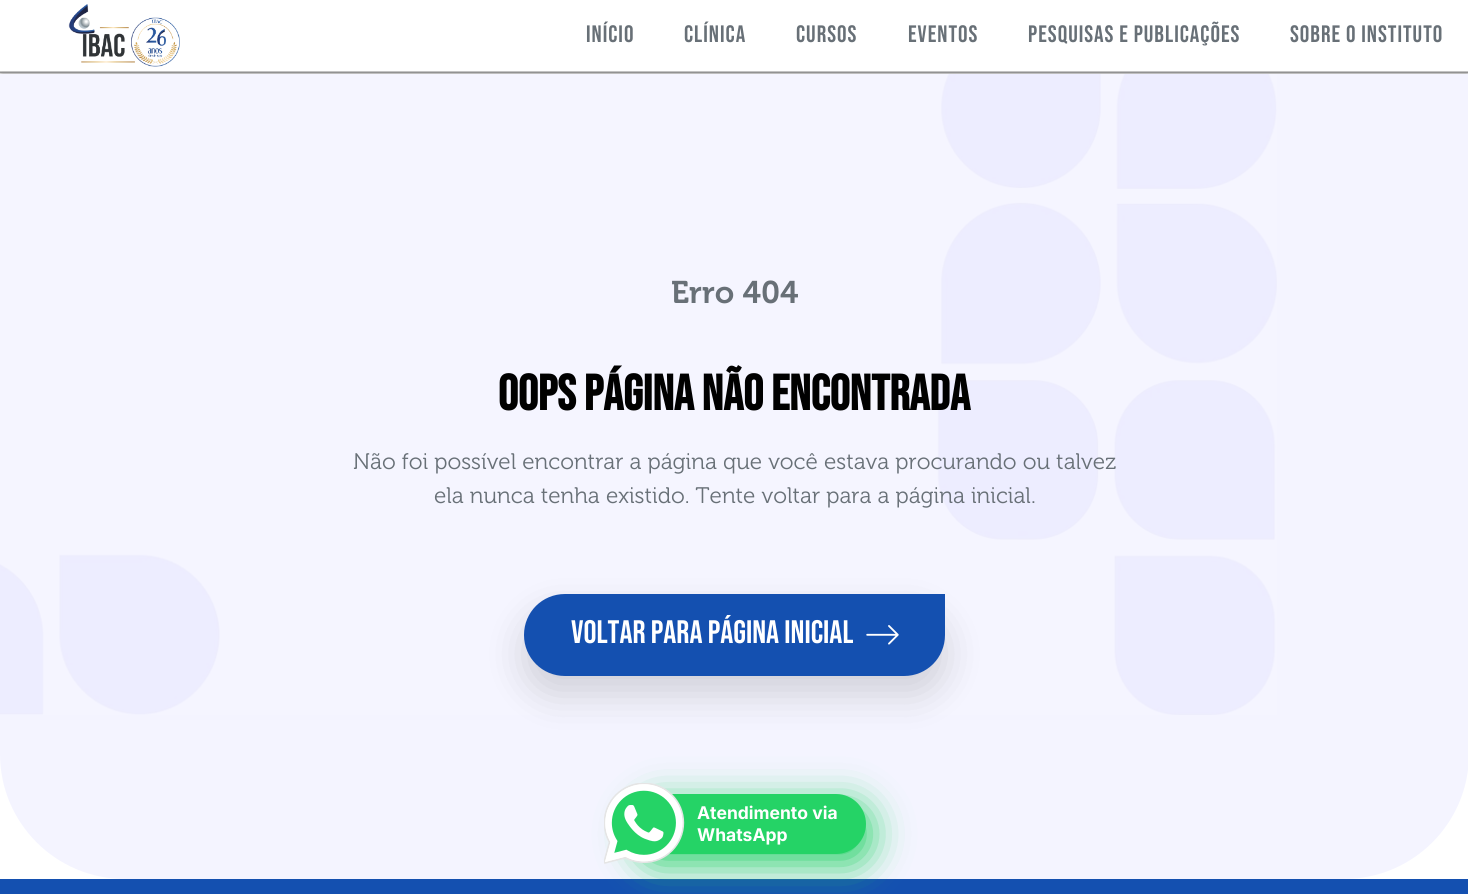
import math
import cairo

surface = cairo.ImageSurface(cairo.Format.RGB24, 1468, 894)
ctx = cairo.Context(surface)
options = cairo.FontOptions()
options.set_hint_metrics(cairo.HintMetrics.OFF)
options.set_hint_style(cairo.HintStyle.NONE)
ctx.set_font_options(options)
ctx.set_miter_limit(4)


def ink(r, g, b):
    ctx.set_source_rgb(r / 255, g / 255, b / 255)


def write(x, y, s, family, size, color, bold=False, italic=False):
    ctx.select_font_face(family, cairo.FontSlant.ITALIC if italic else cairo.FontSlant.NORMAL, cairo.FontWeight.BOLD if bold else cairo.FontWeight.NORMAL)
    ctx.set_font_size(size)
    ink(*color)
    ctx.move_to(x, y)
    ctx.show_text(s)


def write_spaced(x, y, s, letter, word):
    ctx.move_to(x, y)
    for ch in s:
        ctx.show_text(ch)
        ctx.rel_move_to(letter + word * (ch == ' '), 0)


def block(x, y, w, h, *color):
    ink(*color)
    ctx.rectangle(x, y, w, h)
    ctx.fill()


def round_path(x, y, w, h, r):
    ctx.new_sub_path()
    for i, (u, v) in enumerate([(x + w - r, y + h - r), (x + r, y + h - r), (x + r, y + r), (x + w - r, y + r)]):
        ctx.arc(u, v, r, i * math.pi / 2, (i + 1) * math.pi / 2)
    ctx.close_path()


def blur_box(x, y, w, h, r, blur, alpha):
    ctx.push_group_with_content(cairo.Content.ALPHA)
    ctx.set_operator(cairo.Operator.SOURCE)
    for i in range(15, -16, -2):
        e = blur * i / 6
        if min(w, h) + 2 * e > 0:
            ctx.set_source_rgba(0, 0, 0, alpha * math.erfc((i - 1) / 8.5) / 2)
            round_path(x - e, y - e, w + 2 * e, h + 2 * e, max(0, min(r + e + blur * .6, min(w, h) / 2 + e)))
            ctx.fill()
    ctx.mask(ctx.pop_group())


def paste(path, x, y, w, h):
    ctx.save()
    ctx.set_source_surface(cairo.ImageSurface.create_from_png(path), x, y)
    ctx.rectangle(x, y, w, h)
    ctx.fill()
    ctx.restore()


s1 = dict(family="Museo", size=31.25, color=(104, 112, 119))
s2 = dict(family="Bebas Neue", size=50, color=(0, 0, 0), bold=True)
s3 = dict(family="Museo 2", size=22.5, color=(104, 112, 119))
s4 = dict(family="Bebas Neue", size=32.5, color=(255, 255, 255))
s5 = dict(family="Inter", size=17.5, color=(255, 255, 255), bold=True)

ink(255, 255, 255)
ctx.paint()
ink(0, 0, 0)
blur_box(0, 0, 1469, 73, 0, 6, 0.5)
gradient = cairo.LinearGradient(734, 0, 734, 73)
gradient.add_color_stop_rgba(0.97, 1, 1, 1, 1)
gradient.add_color_stop_rgba(1, 0.294, 0.294, 0.294, 0.48)
ctx.set_source(gradient)
ctx.rectangle(0, 0, 1468, 73)
ctx.fill()
paste("pic1.png", 68, 4, 112, 63)
ctx.select_font_face("Bebas Neue")
ctx.set_font_size(23.75)
ink(104, 112, 119)
write_spaced(586, 42, "Início", 1, 0)
write_spaced(684, 42, "Clínica", 1, 0)
write_spaced(796, 42, "Cursos", 1, 0)
write_spaced(908, 42, "Eventos", 1, 0)
write_spaced(1028, 42, "PESQUISAS E PUBLICAÇÕES", 1, 0)
write_spaced(1290, 42, "SOBRE O INSTITUTO", 1, 0)
ink(244, 244, 255)
ctx.new_path()
ctx.move_to(0, 74)
ctx.line_to(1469, 74)
ctx.line_to(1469, 754)
ctx.curve_to(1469, 823, 1413, 879, 1344, 879)
ctx.line_to(125, 879)
ctx.curve_to(56, 879, 0, 823, 0, 754)
ctx.close_path()
ctx.fill()
paste("pic2.png", 0, 74, 1277, 641)
write(671, 303, "Erro 404", **s1)
write(498, 410, "Oops página não encontrada", **s2)
write(353, 469, "Não foi possível encontrar a página que você estava procurando ou talvez", **s3)
write(434, 503, "ela nunca tenha existido. Tente voltar para a página inicial.", **s3)
ink(0, 0, 0)
blur_box(524, 613, 421, 82, 41, 19, 0.15)
ink(20, 80, 176)
ctx.new_path()
ctx.move_to(565, 595.5)
ctx.line_to(943.5, 595.5)
ctx.line_to(943.5, 635)
ctx.curve_to(943.5, 657, 926, 674.5, 904, 674.5)
ctx.line_to(565, 674.5)
ctx.curve_to(543, 674.5, 525.5, 657, 525.5, 635)
ctx.curve_to(525.5, 613, 543, 595.5, 565, 595.5)
ctx.close_path()
ctx.fill_preserve()
ctx.set_line_width(3)
ctx.stroke()
write(571, 643, "VOLTAR PARA PÁGINA INICIAL", **s4)
paste("pic3.png", 866, 625, 33, 20)
block(0, 879, 1468, 15, 20, 80, 176)
ink(37, 211, 102)
blur_box(639, 804, 231, 60, 30, 19, 1)
ink(37, 211, 102)
round_path(635, 794, 231, 60, 30)
ctx.fill()
paste("pic4.png", 604, 783, 81, 81)
write(697, 819, "Atendimento via", **s5)
write(697, 841, "WhatsApp", **s5)
surface.write_to_png("screenshot.png")
